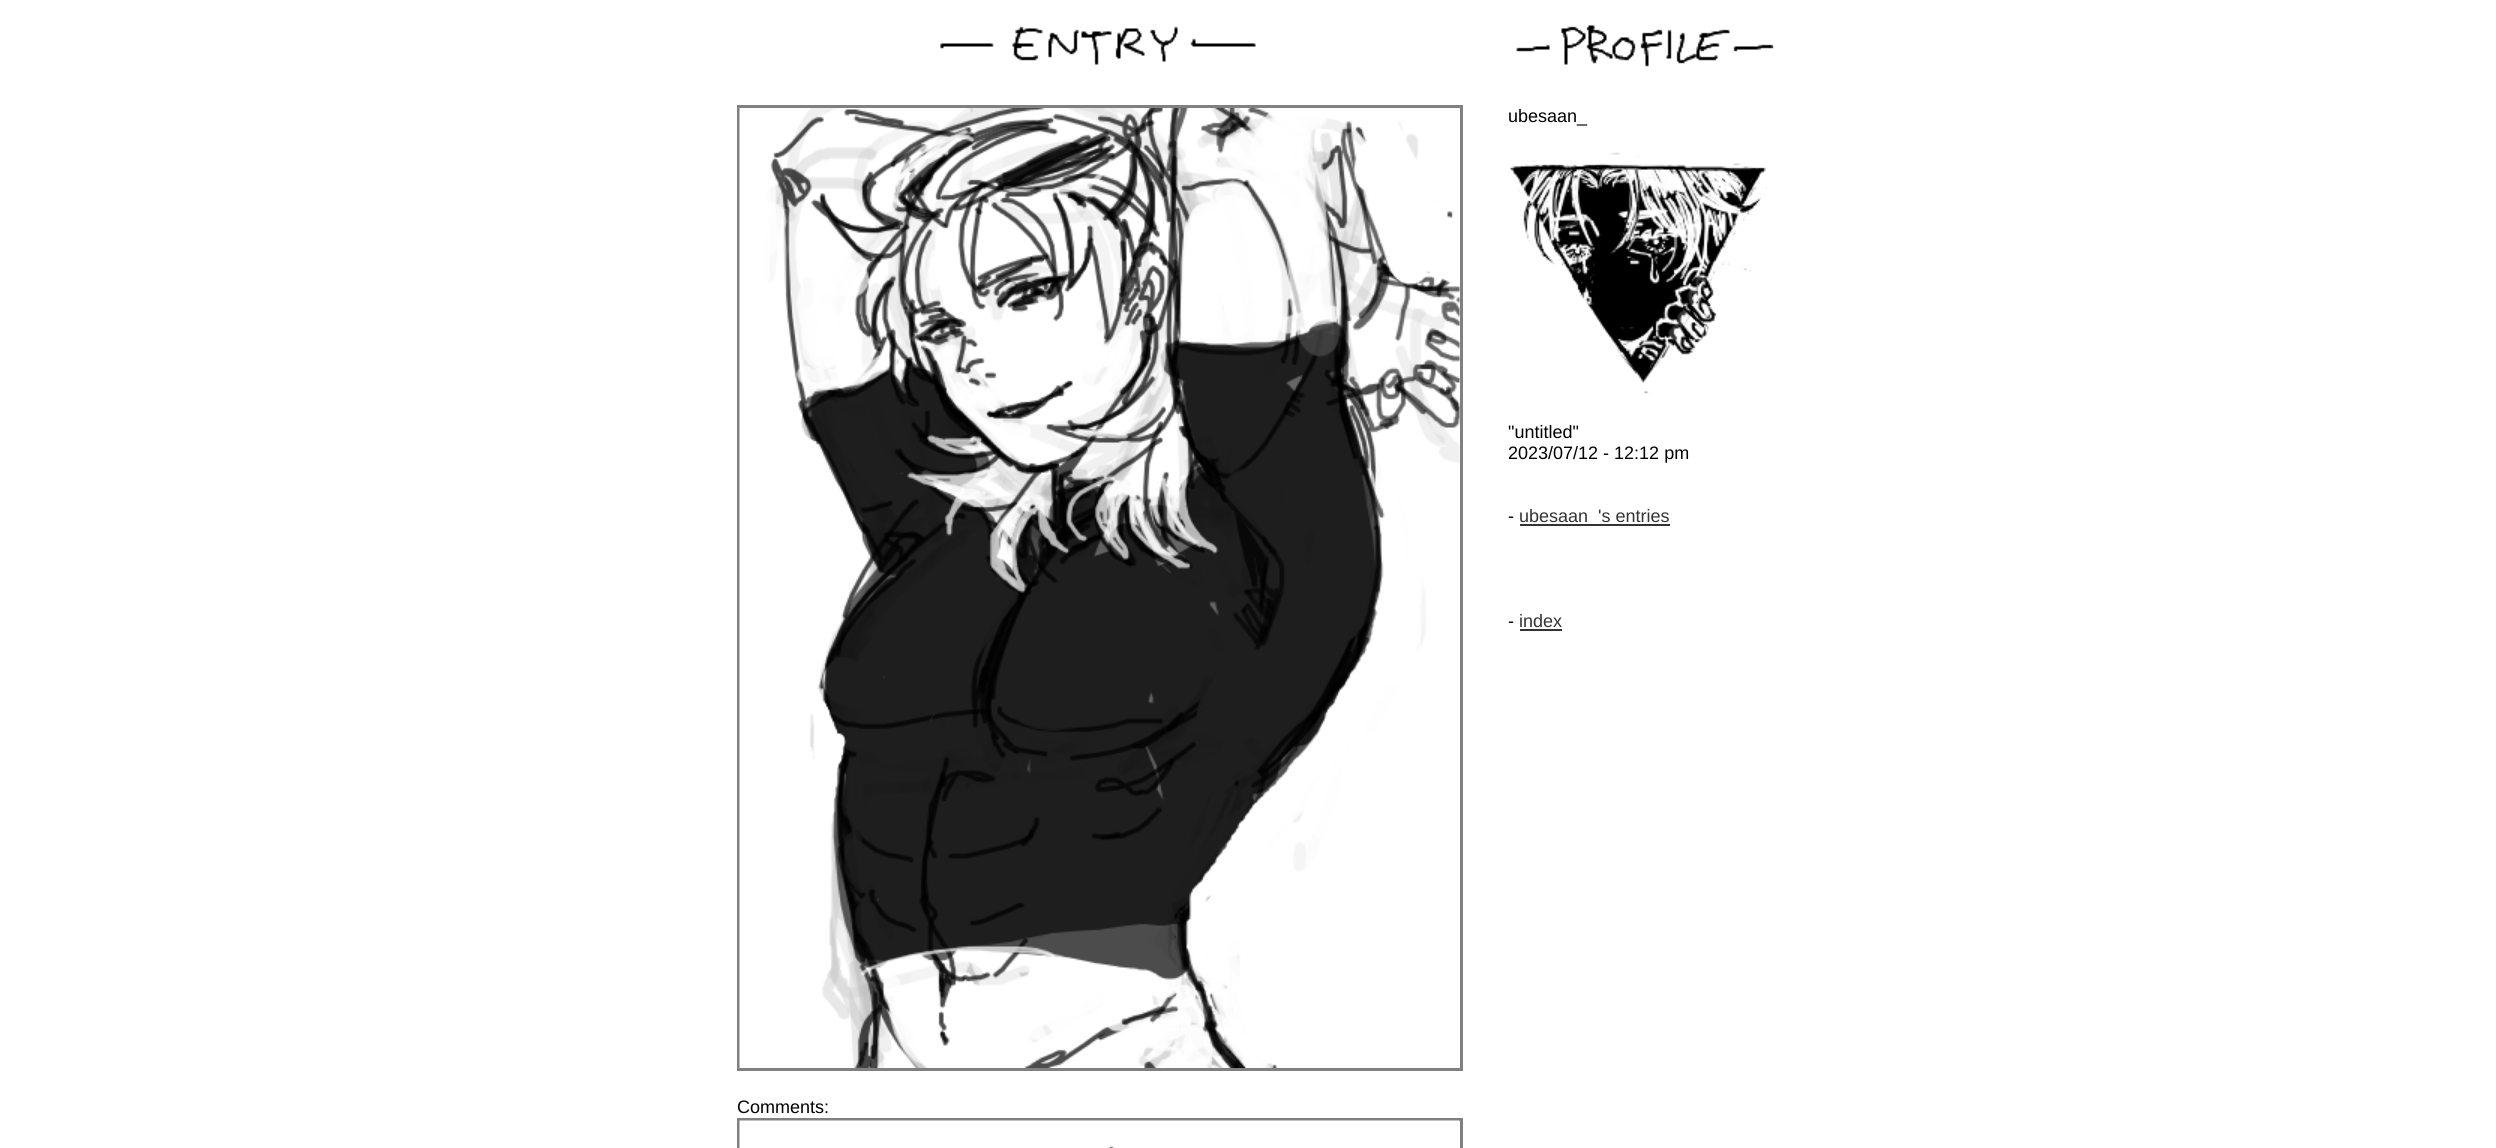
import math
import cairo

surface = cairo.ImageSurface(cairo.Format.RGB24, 2496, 1148)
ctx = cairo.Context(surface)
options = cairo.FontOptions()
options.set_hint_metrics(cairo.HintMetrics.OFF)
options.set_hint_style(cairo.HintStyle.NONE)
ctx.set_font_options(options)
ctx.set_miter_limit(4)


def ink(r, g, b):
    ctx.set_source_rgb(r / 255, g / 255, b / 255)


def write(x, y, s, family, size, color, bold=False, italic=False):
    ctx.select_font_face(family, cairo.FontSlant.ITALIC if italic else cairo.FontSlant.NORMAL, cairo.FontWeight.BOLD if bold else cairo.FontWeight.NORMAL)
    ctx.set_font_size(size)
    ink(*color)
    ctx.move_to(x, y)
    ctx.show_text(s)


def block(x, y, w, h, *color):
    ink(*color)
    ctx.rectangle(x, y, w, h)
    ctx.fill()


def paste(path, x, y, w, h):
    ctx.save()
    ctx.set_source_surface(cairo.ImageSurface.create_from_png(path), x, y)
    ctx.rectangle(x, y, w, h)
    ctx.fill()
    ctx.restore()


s1 = dict(family="Liberation Sans", size=18, color=(0, 0, 0))
s2 = dict(family="Liberation Sans", size=18, color=(51, 51, 51))

ink(255, 255, 255)
ctx.paint()
paste("pic1.png", 1516, 25, 258, 42)
write(1508, 122, "ubesaan_", **s1)
paste("pic2.png", 1510, 152, 257, 242)
write(1508, 438, "\"untitled\"", **s1)
write(1508, 459, "2023/07/12 - 12:12 pm", **s1)
write(1508, 522, "-", **s1)
block(1520, 524, 150, 2, 51, 51, 51)
write(1519, 522, "ubesaan_'s entries", **s2)
write(1508, 627, "-", **s1)
write(1519, 627, "index", **s2)
block(1520, 629, 42, 2, 51, 51, 51)
paste("pic3.png", 940, 26, 316, 39)
ctx.rectangle(738.5, 106.5, 723, 963)
ink(128, 128, 128)
ctx.set_line_width(3)
ctx.stroke()
paste("pic4.png", 739, 108, 721, 960)
write(737, 1113, "Comments:", **s1)
ctx.rectangle(738.5, 1119.5, 723, 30)
ink(128, 128, 128)
ctx.stroke()
paste("pic5.png", 739, 1120, 721, 28)
surface.write_to_png("screenshot.png")
